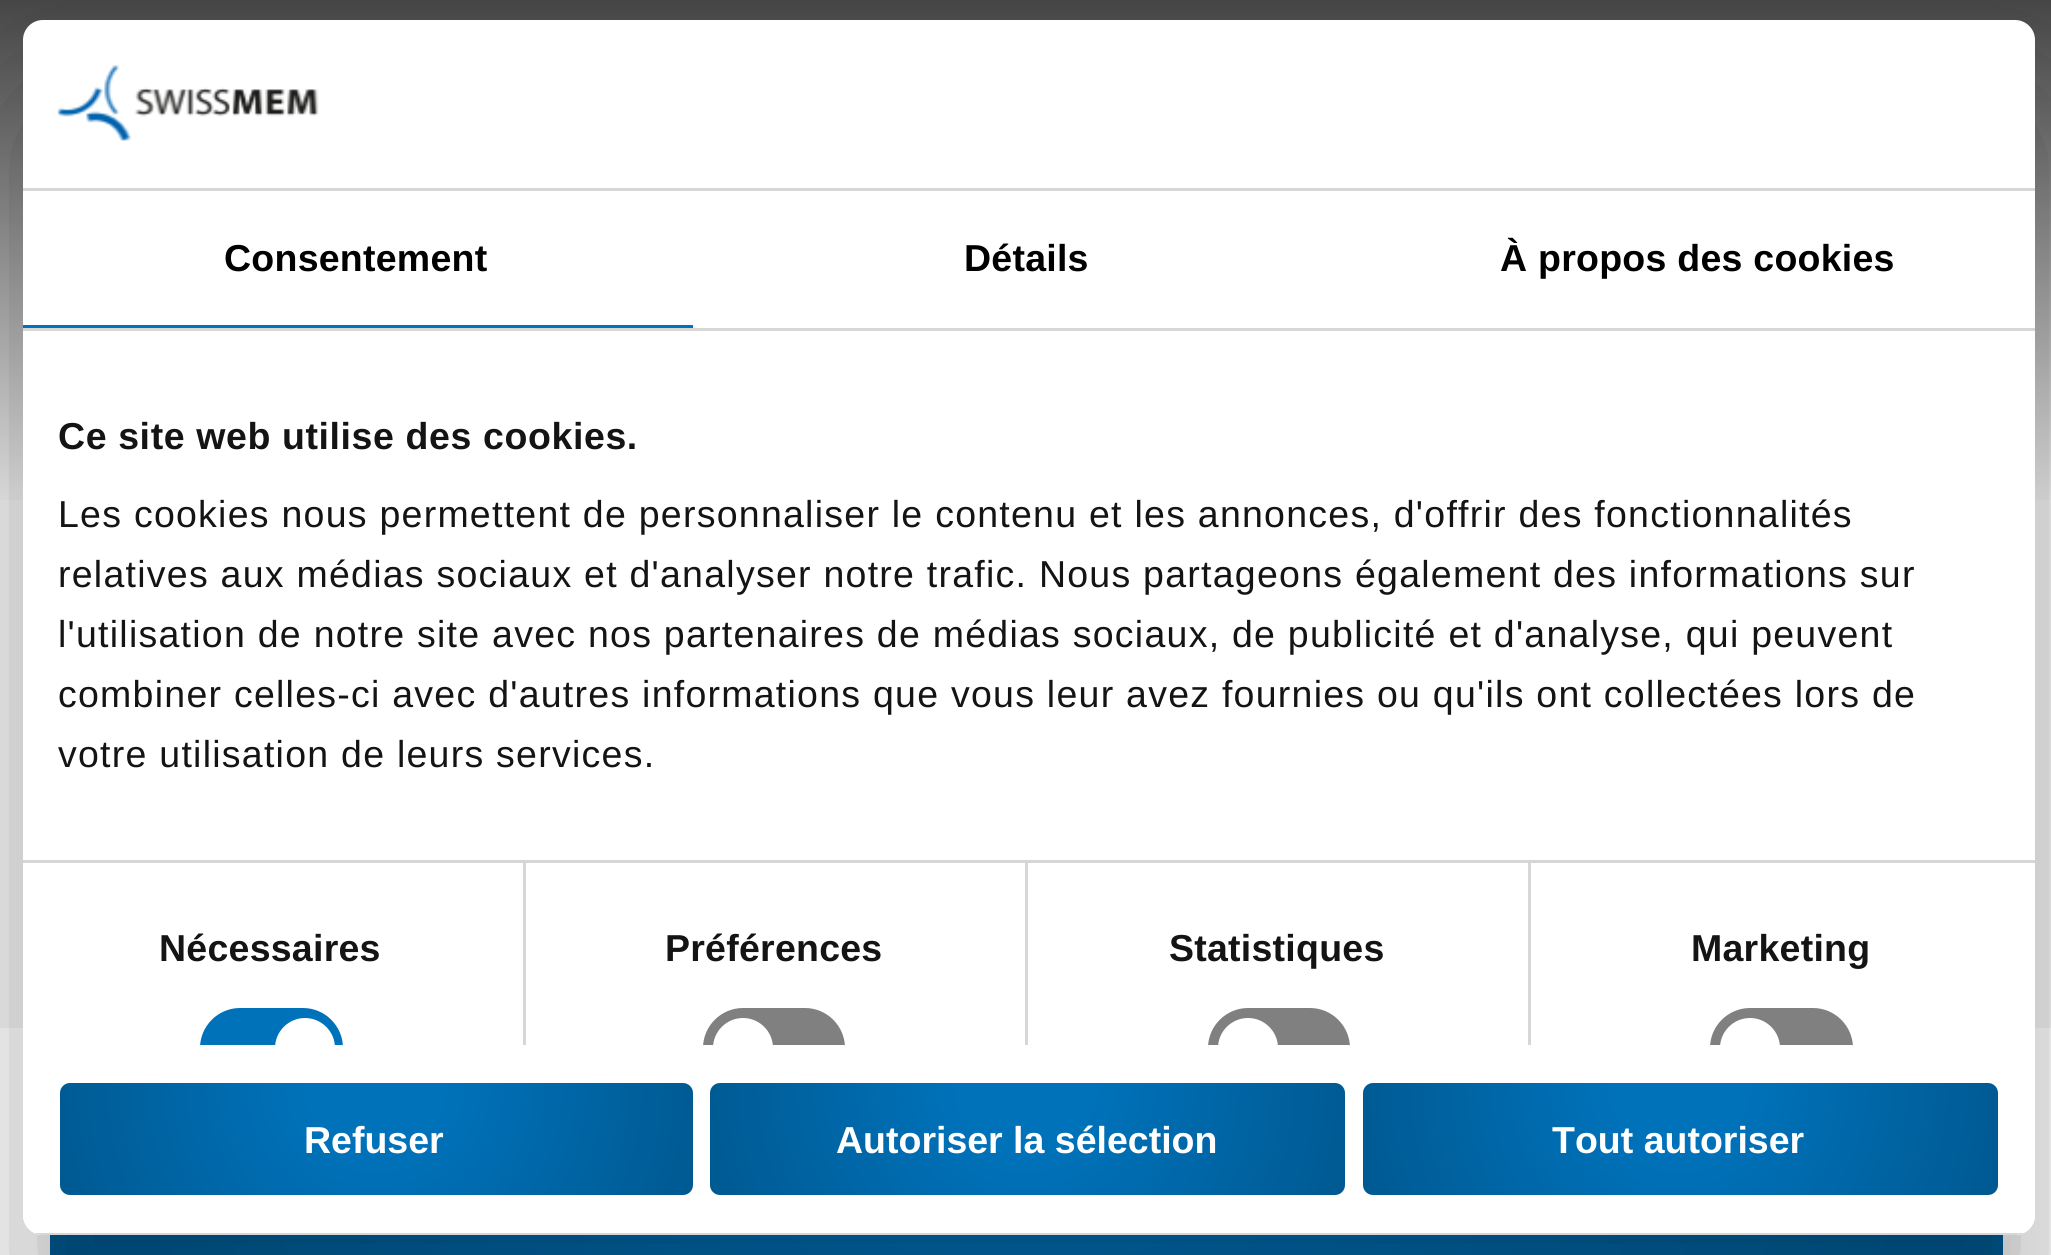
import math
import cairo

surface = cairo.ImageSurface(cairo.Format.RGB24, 2051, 1255)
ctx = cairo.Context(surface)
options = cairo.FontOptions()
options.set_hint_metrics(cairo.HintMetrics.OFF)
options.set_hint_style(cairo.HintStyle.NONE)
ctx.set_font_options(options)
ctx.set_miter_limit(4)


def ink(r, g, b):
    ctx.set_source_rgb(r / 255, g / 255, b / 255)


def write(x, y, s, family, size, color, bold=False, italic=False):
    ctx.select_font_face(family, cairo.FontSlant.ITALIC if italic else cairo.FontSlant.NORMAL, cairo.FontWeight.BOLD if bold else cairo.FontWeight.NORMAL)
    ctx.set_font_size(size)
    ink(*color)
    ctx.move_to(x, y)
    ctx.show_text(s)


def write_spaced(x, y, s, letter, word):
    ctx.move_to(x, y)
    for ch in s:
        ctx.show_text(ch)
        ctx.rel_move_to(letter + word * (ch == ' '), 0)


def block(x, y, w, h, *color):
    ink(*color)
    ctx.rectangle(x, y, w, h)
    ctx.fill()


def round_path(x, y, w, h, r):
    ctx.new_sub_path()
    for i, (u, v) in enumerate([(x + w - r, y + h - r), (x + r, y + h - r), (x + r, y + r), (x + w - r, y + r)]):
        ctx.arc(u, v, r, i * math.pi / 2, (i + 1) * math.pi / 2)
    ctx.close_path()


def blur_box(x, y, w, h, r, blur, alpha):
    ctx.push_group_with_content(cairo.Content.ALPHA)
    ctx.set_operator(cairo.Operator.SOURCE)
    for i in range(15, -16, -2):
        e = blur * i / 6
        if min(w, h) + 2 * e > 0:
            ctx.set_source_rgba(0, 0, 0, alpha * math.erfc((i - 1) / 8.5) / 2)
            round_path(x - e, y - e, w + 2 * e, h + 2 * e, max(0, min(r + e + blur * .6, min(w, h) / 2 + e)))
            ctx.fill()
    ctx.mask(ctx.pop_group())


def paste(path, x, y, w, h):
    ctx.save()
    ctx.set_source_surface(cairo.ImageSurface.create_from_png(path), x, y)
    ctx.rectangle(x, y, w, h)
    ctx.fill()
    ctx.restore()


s1 = dict(family="Liberation Sans", size=37.5, color=(255, 255, 255), bold=True)

ink(244, 244, 244)
ctx.paint()
gradient = cairo.LinearGradient(1026, 0, 1026, 500)
gradient.add_color_stop_rgba(0, 0.282, 0.282, 0.282, 1)
gradient.add_color_stop_rgba(1, 0.945, 0.945, 0.945, 1)
ctx.set_source(gradient)
ctx.rectangle(0, 0, 2051, 500)
ctx.fill()
block(0, 1028, 2051, 227, 255, 255, 255)
ink(0, 0, 0)
blur_box(60, 838, 1953, 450, 10, 17.5, 0.07)
gradient = cairo.RadialGradient(1026, 828, 0, 1026, 828, 1075)
gradient.add_color_stop_rgba(0.2, 0, 0.447, 0.729, 1)
gradient.add_color_stop_rgba(1, 0, 0.349, 0.569, 1)
ctx.set_source(gradient)
ctx.rectangle(50, 1235, 1953, 20)
ctx.fill()
ctx.save()
ctx.set_fill_rule(cairo.FillRule.EVEN_ODD)
ctx.new_path()
ctx.move_to(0, 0)
ctx.line_to(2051, 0)
ctx.line_to(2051, 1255)
ctx.line_to(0, 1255)
ctx.close_path()
ctx.move_to(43, 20)
ctx.line_to(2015, 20)
ctx.curve_to(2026, 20, 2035, 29, 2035, 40)
ctx.line_to(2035, 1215)
ctx.curve_to(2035, 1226, 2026, 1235, 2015, 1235)
ctx.line_to(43, 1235)
ctx.curve_to(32, 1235, 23, 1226, 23, 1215)
ctx.line_to(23, 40)
ctx.curve_to(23, 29, 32, 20, 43, 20)
ctx.close_path()
ctx.clip()
ink(0, 0, 0)
blur_box(23, 100, 2012, 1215, 20, 85, 0.3)
ctx.restore()
ink(255, 255, 255)
round_path(23, 20, 2012, 1215, 20)
ctx.fill()
block(23, 188, 2012, 3, 214, 214, 214)
paste("pic1.png", 57, 65, 262, 76)
block(23, 328, 2012, 3, 214, 214, 214)
block(23, 325, 670, 3, 0, 114, 186)
ctx.select_font_face("Liberation Sans", cairo.FontSlant.NORMAL, cairo.FontWeight.BOLD)
ctx.set_font_size(37.5)
ink(0, 0, 0)
write_spaced(224, 271, "Consentement", 0.25, 0)
write_spaced(964, 271, "Détails", 0.25, 0)
write_spaced(1500, 271, "À propos des cookies", 0.25, 0)
block(23, 860, 2012, 3, 214, 214, 214)
ink(20, 20, 20)
write_spaced(58, 449, "Ce site web utilise des cookies.", 0.6, 0)
ctx.select_font_face("Liberation Sans")
write_spaced(58, 527, "Les cookies nous permettent de personnaliser le contenu et les annonces, d'offrir des fonctionnalités", 1.25, 0)
write_spaced(58, 587, "relatives aux médias sociaux et d'analyser notre trafic. Nous partageons également des informations sur", 1.25, 0)
write_spaced(58, 647, "l'utilisation de notre site avec nos partenaires de médias sociaux, de publicité et d'analyse, qui peuvent", 1.25, 0)
write_spaced(58, 707, "combiner celles-ci avec d'autres informations que vous leur avez fournies ou qu'ils ont collectées lors de", 1.25, 0)
write_spaced(58, 767, "votre utilisation de leurs services.", 1.25, 0)
block(523, 863, 3, 182, 214, 214, 214)
ctx.select_font_face("Liberation Sans", cairo.FontSlant.NORMAL, cairo.FontWeight.BOLD)
ink(20, 20, 20)
write_spaced(159, 961, "Nécessaires", 0.25, 0)
ink(0, 114, 186)
ctx.new_path()
ctx.move_to(240, 1008)
ctx.line_to(303, 1008)
ctx.curve_to(325, 1008, 343, 1026, 343, 1048)
ctx.line_to(343, 1045)
ctx.line_to(200, 1045)
ctx.line_to(200, 1048)
ctx.curve_to(200, 1026, 218, 1008, 240, 1008)
ctx.close_path()
ctx.fill()
ink(255, 255, 255)
ctx.new_path()
ctx.move_to(305, 1018)
ctx.curve_to(321.5, 1018, 335, 1031.5, 335, 1048)
ctx.line_to(335, 1045)
ctx.line_to(275, 1045)
ctx.line_to(275, 1048)
ctx.curve_to(275, 1031.5, 288.5, 1018, 305, 1018)
ctx.close_path()
ctx.fill()
block(1025, 863, 3, 182, 214, 214, 214)
ink(20, 20, 20)
write_spaced(665, 961, "Préférences", 0.25, 0)
ink(128, 128, 128)
ctx.new_path()
ctx.move_to(743, 1008)
ctx.line_to(805, 1008)
ctx.curve_to(827, 1008, 845, 1026, 845, 1048)
ctx.line_to(845, 1045)
ctx.line_to(703, 1045)
ctx.line_to(703, 1048)
ctx.curve_to(703, 1026, 721, 1008, 743, 1008)
ctx.close_path()
ctx.fill()
ink(255, 255, 255)
ctx.new_path()
ctx.move_to(743, 1018)
ctx.curve_to(759.5, 1018, 773, 1031.5, 773, 1048)
ctx.line_to(773, 1045)
ctx.line_to(713, 1045)
ctx.line_to(713, 1048)
ctx.curve_to(713, 1031.5, 726.5, 1018, 743, 1018)
ctx.close_path()
ctx.fill()
block(1528, 863, 3, 182, 214, 214, 214)
ink(20, 20, 20)
write_spaced(1169, 961, "Statistiques", 0.25, 0)
ink(128, 128, 128)
ctx.new_path()
ctx.move_to(1248, 1008)
ctx.line_to(1310, 1008)
ctx.curve_to(1332, 1008, 1350, 1026, 1350, 1048)
ctx.line_to(1350, 1045)
ctx.line_to(1208, 1045)
ctx.line_to(1208, 1048)
ctx.curve_to(1208, 1026, 1226, 1008, 1248, 1008)
ctx.close_path()
ctx.fill()
ink(255, 255, 255)
ctx.new_path()
ctx.move_to(1248, 1018)
ctx.curve_to(1264.5, 1018, 1278, 1031.5, 1278, 1048)
ctx.line_to(1278, 1045)
ctx.line_to(1218, 1045)
ctx.line_to(1218, 1048)
ctx.curve_to(1218, 1031.5, 1231.5, 1018, 1248, 1018)
ctx.close_path()
ctx.fill()
ink(20, 20, 20)
write_spaced(1691, 961, "Marketing", 0.25, 0)
ink(128, 128, 128)
ctx.new_path()
ctx.move_to(1750, 1008)
ctx.line_to(1813, 1008)
ctx.curve_to(1835, 1008, 1853, 1026, 1853, 1048)
ctx.line_to(1853, 1045)
ctx.line_to(1710, 1045)
ctx.line_to(1710, 1048)
ctx.curve_to(1710, 1026, 1728, 1008, 1750, 1008)
ctx.close_path()
ctx.fill()
ink(255, 255, 255)
ctx.new_path()
ctx.move_to(1750, 1018)
ctx.curve_to(1766.5, 1018, 1780, 1031.5, 1780, 1048)
ctx.line_to(1780, 1045)
ctx.line_to(1720, 1045)
ctx.line_to(1720, 1048)
ctx.curve_to(1720, 1031.5, 1733.5, 1018, 1750, 1018)
ctx.close_path()
ctx.fill()
ctx.save()
round_path(23, 20, 2012, 1215, 20)
ctx.clip()
block(34, 1233, 1990, 2, 214, 214, 214)
ctx.restore()
gradient = cairo.RadialGradient(375, 1083, 0, 375, 1083, 336)
gradient.add_color_stop_rgba(0.2, 0, 0.447, 0.729, 1)
gradient.add_color_stop_rgba(1, 0, 0.349, 0.569, 1)
ctx.set_source(gradient)
round_path(60, 1083, 633, 112, 10)
ctx.fill()
write(304, 1153, "Refuser", **s1)
gradient = cairo.RadialGradient(1026, 1083, 0, 1026, 1083, 337)
gradient.add_color_stop_rgba(0.2, 0, 0.447, 0.729, 1)
gradient.add_color_stop_rgba(1, 0, 0.349, 0.569, 1)
ctx.set_source(gradient)
round_path(710, 1083, 635, 112, 10)
ctx.fill()
write(836, 1153, "Autoriser la sélection", **s1)
gradient = cairo.RadialGradient(1679, 1083, 0, 1679, 1083, 337)
gradient.add_color_stop_rgba(0.2, 0, 0.447, 0.729, 1)
gradient.add_color_stop_rgba(1, 0, 0.349, 0.569, 1)
ctx.set_source(gradient)
round_path(1363, 1083, 635, 112, 10)
ctx.fill()
write(1552, 1153, "Tout autoriser", **s1)
surface.write_to_png("screenshot.png")
